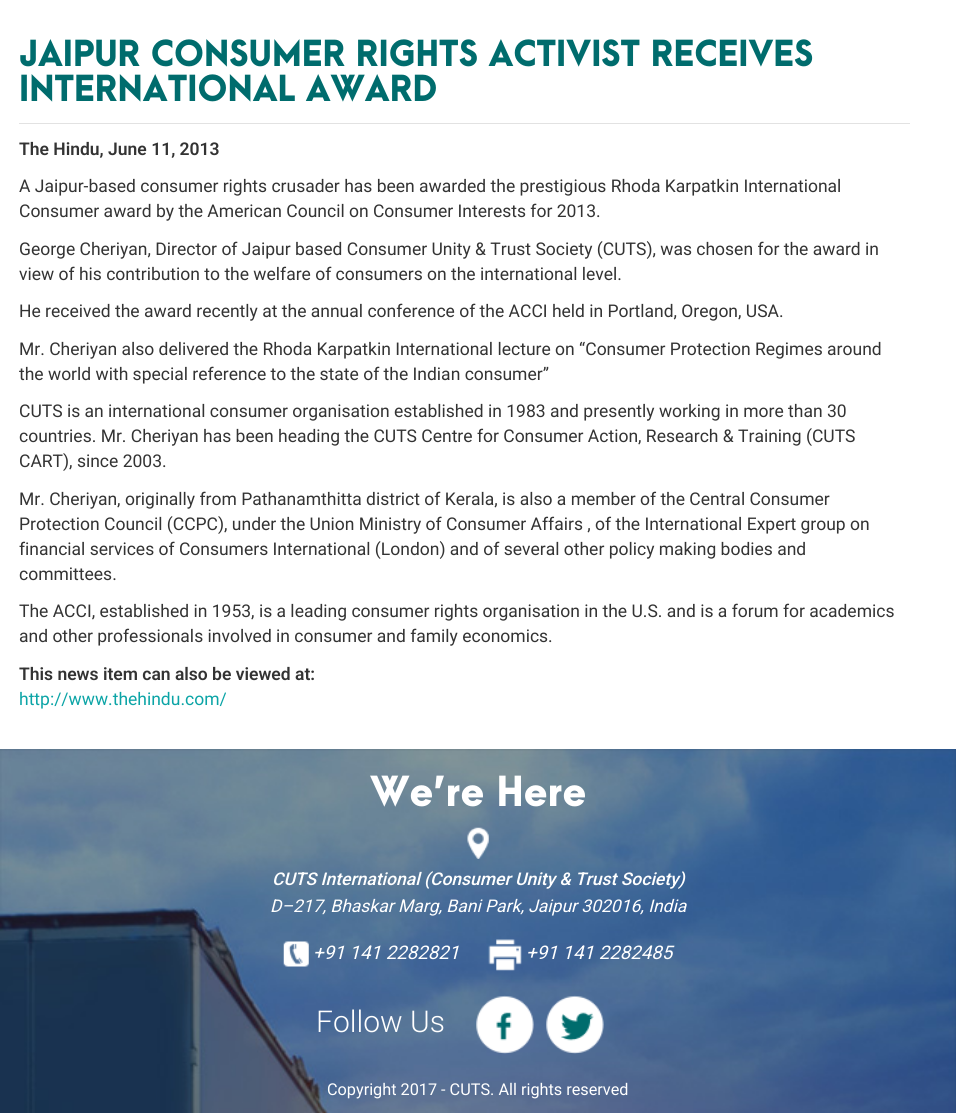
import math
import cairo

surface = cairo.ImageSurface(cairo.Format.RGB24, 956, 1113)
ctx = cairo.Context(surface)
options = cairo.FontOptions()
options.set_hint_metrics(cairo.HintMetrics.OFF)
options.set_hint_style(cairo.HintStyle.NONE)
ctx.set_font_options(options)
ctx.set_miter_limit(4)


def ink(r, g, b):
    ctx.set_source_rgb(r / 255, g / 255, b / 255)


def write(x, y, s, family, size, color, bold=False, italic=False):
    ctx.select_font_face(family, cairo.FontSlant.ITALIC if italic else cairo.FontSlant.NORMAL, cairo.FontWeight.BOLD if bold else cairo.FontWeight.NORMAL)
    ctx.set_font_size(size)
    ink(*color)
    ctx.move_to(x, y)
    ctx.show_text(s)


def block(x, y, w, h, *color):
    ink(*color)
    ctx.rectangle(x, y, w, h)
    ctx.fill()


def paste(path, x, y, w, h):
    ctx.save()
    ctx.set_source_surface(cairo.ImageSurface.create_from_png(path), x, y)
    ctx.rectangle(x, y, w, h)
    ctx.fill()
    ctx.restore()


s1 = dict(family="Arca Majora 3 Black", size=32.5, color=(0, 108, 109))
s2 = dict(family="Roboto SemiBold", size=17.5, color=(51, 51, 51))
s3 = dict(family="Roboto", size=17.5, color=(51, 51, 51))
s4 = dict(family="Roboto", size=17.5, color=(11, 164, 166))
s5 = dict(family="Arca Majora 3 Black", size=37.5, color=(255, 255, 255))
s6 = dict(family="Roboto Medium", size=17.5, color=(255, 255, 255), italic=True)
s7 = dict(family="Roboto", size=17.5, color=(255, 255, 255), italic=True)
s8 = dict(family="Roboto", size=18.75, color=(255, 255, 255), italic=True)
s9 = dict(family="Roboto Light", size=30, color=(255, 255, 255))
s10 = dict(family="Roboto", size=16.25, color=(255, 255, 255))

ink(255, 255, 255)
ctx.paint()
block(19, 123, 891, 1, 226, 226, 226)
write(19, 66, "JAIPUR CONSUMER RIGHTS ACTIVIST RECEIVES", **s1)
write(19, 101, "INTERNATIONAL AWARD", **s1)
write(19, 155, "The Hindu, June 11, 2013", **s2)
write(19, 192, "A Jaipur-based consumer rights crusader has been awarded the prestigious Rhoda Karpatkin International", **s3)
write(19, 217, "Consumer award by the American Council on Consumer Interests for 2013.", **s3)
write(19, 255, "George Cheriyan, Director of Jaipur based Consumer Unity & Trust Society (CUTS), was chosen for the award in", **s3)
write(19, 280, "view of his contribution to the welfare of consumers on the international level.", **s3)
write(19, 317, "He received the award recently at the annual conference of the ACCI held in Portland, Oregon, USA.", **s3)
write(19, 355, "Mr. Cheriyan also delivered the Rhoda Karpatkin International lecture on “Consumer Protection Regimes around", **s3)
write(19, 380, "the world with special reference to the state of the Indian consumer”", **s3)
write(19, 417, "CUTS is an international consumer organisation established in 1983 and presently working in more than 30", **s3)
write(19, 442, "countries. Mr. Cheriyan has been heading the CUTS Centre for Consumer Action, Research & Training (CUTS", **s3)
write(19, 467, "CART), since 2003.", **s3)
write(19, 505, "Mr. Cheriyan, originally from Pathanamthitta district of Kerala, is also a member of the Central Consumer", **s3)
write(19, 530, "Protection Council (CCPC), under the Union Ministry of Consumer Affairs , of the International Expert group on", **s3)
write(19, 555, "financial services of Consumers International (London) and of several other policy making bodies and", **s3)
write(19, 580, "committees.", **s3)
write(19, 617, "The ACCI, established in 1953, is a leading consumer rights organisation in the U.S. and is a forum for academics", **s3)
write(19, 642, "and other professionals involved in consumer and family economics.", **s3)
write(19, 680, "This news item can also be viewed at:", **s2)
write(19, 705, "http://www.thehindu.com/", **s4)
paste("pic1.png", 0, 749, 956, 364)
write(370, 806, "We’re Here", **s5)
paste("pic2.png", 467, 827, 22, 32)
write(272, 885, "CUTS International (Consumer Unity & Trust Society)", **s6)
write(270, 912, "D–217, Bhaskar Marg, Bani Park, Jaipur 302016, India", **s7)
paste("pic3.png", 283, 941, 26, 26)
write(313, 959, "+91 141 2282821", **s8)
paste("pic4.png", 488, 939, 34, 32)
write(526, 959, "+91 141 2282485", **s8)
write(316, 1032, "Follow Us", **s9)
paste("pic5.png", 476, 995, 58, 59)
paste("pic6.png", 546, 995, 58, 59)
write(327, 1095, "Copyright 2017 - CUTS. All rights reserved", **s10)
surface.write_to_png("screenshot.png")
